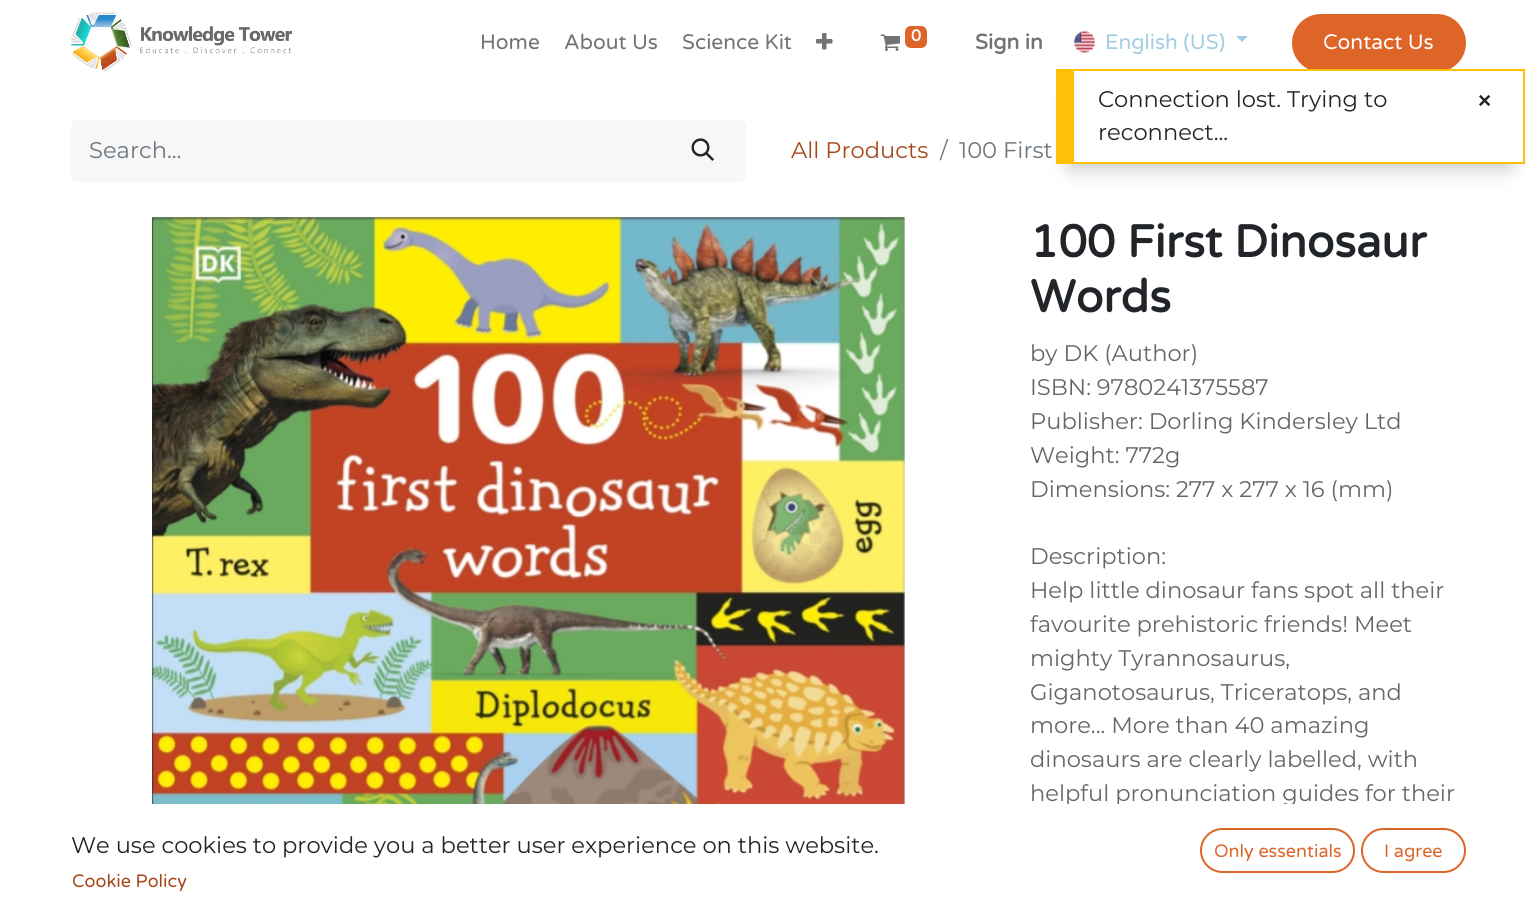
import math
import cairo

surface = cairo.ImageSurface(cairo.Format.RGB24, 1536, 920)
ctx = cairo.Context(surface)
options = cairo.FontOptions()
options.set_hint_metrics(cairo.HintMetrics.OFF)
options.set_hint_style(cairo.HintStyle.NONE)
ctx.set_font_options(options)
ctx.set_miter_limit(4)


def ink(r, g, b):
    ctx.set_source_rgb(r / 255, g / 255, b / 255)


def write(x, y, s, family, size, color, bold=False, italic=False):
    ctx.select_font_face(family, cairo.FontSlant.ITALIC if italic else cairo.FontSlant.NORMAL, cairo.FontWeight.BOLD if bold else cairo.FontWeight.NORMAL)
    ctx.set_font_size(size)
    ink(*color)
    ctx.move_to(x, y)
    ctx.show_text(s)


def block(x, y, w, h, *color):
    ink(*color)
    ctx.rectangle(x, y, w, h)
    ctx.fill()


def round_path(x, y, w, h, r):
    ctx.new_sub_path()
    for i, (u, v) in enumerate([(x + w - r, y + h - r), (x + r, y + h - r), (x + r, y + r), (x + w - r, y + r)]):
        ctx.arc(u, v, r, i * math.pi / 2, (i + 1) * math.pi / 2)
    ctx.close_path()


def blur_box(x, y, w, h, r, blur, alpha):
    ctx.push_group_with_content(cairo.Content.ALPHA)
    ctx.set_operator(cairo.Operator.SOURCE)
    for i in range(15, -16, -2):
        e = blur * i / 6
        if min(w, h) + 2 * e > 0:
            ctx.set_source_rgba(0, 0, 0, alpha * math.erfc((i - 1) / 8.5) / 2)
            round_path(x - e, y - e, w + 2 * e, h + 2 * e, max(0, min(r + e + blur * .6, min(w, h) / 2 + e)))
            ctx.fill()
    ctx.mask(ctx.pop_group())


def paste(path, x, y, w, h):
    ctx.save()
    ctx.set_source_surface(cairo.ImageSurface.create_from_png(path), x, y)
    ctx.rectangle(x, y, w, h)
    ctx.fill()
    ctx.restore()


s1 = dict(family="Varela Round", size=21, color=(115, 115, 115))
s2 = dict(family="Varela Round", size=16, color=(255, 255, 255), bold=True)
s3 = dict(family="Varela Round", size=21, color=(115, 115, 115), bold=True)
s4 = dict(family="Varela Round", size=21, color=(162, 205, 227))
s5 = dict(family="Varela Round", size=21, color=(255, 255, 255))
s6 = dict(family="Montserrat", size=22.6, color=(108, 117, 125))
s7 = dict(family="Montserrat", size=22.6, color=(165, 72, 25))
s8 = dict(family="Varela Round", size=45.25, color=(33, 37, 41), bold=True)
s9 = dict(family="Montserrat", size=22.6, color=(100, 102, 105))
s10 = dict(family="Montserrat", size=22.6, color=(33, 37, 41))
s11 = dict(family="Varela Round", size=18, color=(165, 72, 25))
s12 = dict(family="Varela Round", size=18, color=(222, 101, 40))
s13 = dict(family="Liberation Sans", size=22.6, color=(33, 37, 41), bold=True)

ink(255, 255, 255)
ctx.paint()
paste("pic1.png", 71, 12, 222, 60)
write(480, 49, "Home", **s1)
write(564, 49, "About Us", **s1)
write(682, 49, "Science Kit", **s1)
paste("pic2.png", 816, 33, 17, 17)
paste("pic3.png", 880, 34, 20, 17)
ink(222, 101, 40)
round_path(905, 26, 22, 22, 6)
ctx.fill()
write(911, 41, "0", **s2)
write(975, 49, "Sign in", **s3)
paste("pic4.png", 1074, 31, 21, 22)
write(1105, 49, "English (US)", **s4)
ctx.new_path()
ctx.move_to(1236, 36)
ctx.line_to(1248, 36)
ctx.line_to(1242, 42)
ctx.close_path()
ctx.fill()
ink(222, 101, 40)
round_path(1293, 15, 172, 56, 28)
ctx.fill_preserve()
ctx.stroke()
write(1323, 49, "Contact Us", **s5)
ink(247, 247, 247)
ctx.new_path()
ctx.move_to(77, 120)
ctx.line_to(662, 120)
ctx.line_to(662, 182)
ctx.line_to(77, 182)
ctx.curve_to(73.5, 182, 71, 179.5, 71, 176)
ctx.line_to(71, 126)
ctx.curve_to(71, 122.5, 73.5, 120, 77, 120)
ctx.close_path()
ctx.fill()
write(89, 158, "Search...", **s6)
ink(247, 247, 247)
ctx.new_path()
ctx.move_to(660, 120)
ctx.line_to(740, 120)
ctx.curve_to(743.5, 120, 746, 122.5, 746, 126)
ctx.line_to(746, 176)
ctx.curve_to(746, 179.5, 743.5, 182, 740, 182)
ctx.line_to(660, 182)
ctx.close_path()
ctx.fill()
paste("pic5.png", 691, 138, 23, 23)
write(791, 158, "All Products", **s7)
write(940, 158, "/", **s6)
write(959, 158, "100 First", **s6)
paste("pic6.png", 152, 217, 753, 587)
write(1030, 257, "100 First Dinosaur", **s8)
write(1030, 312, "Words", **s8)
write(1030, 361, "by DK (Author)", **s9)
write(1030, 395, "ISBN: 9780241375587", **s9)
write(1030, 429, "Publisher: Dorling Kindersley Ltd", **s9)
write(1030, 463, "Weight: 772g", **s9)
write(1030, 497, "Dimensions: 277 x 277 x 16 (mm)", **s9)
write(1030, 564, "Description:", **s9)
write(1030, 598, "Help little dinosaur fans spot all their", **s9)
write(1030, 632, "favourite prehistoric friends! Meet", **s9)
write(1030, 666, "mighty Tyrannosaurus,", **s9)
write(1030, 700, "Giganotosaurus, Triceratops, and", **s9)
write(1030, 733, "more... More than 40 amazing", **s9)
write(1030, 767, "dinosaurs are clearly labelled, with", **s9)
write(1030, 801, "helpful pronunciation guides for their", **s9)
block(1067, 804, 228, 2, 255, 255, 255)
write(71, 853, "We use cookies to provide you a better user experience on this website.", **s10)
write(72, 887, "Cookie Policy", **s11)
round_path(1201, 829, 153, 43, 21.5)
ink(222, 101, 40)
ctx.stroke()
write(1214, 857, "Only essentials", **s12)
round_path(1362, 829, 103, 43, 21.5)
ctx.stroke()
write(1384, 857, "I agree", **s12)
ink(0, 0, 0)
blur_box(1071, 102, 438, 65, 0, 10.5, 0.25)
block(1074, 71, 449, 91, 255, 255, 255)
block(1074, 69, 450, 2, 255, 193, 7)
block(1523, 69, 2, 95, 255, 193, 7)
block(1074, 162, 450, 2, 255, 193, 7)
block(1056, 69, 18, 95, 255, 193, 7)
write(1098, 107, "Connection lost. Trying to", **s10)
write(1098, 140, "reconnect...", **s10)
write(1478, 108, "×", **s13)
surface.write_to_png("screenshot.png")
